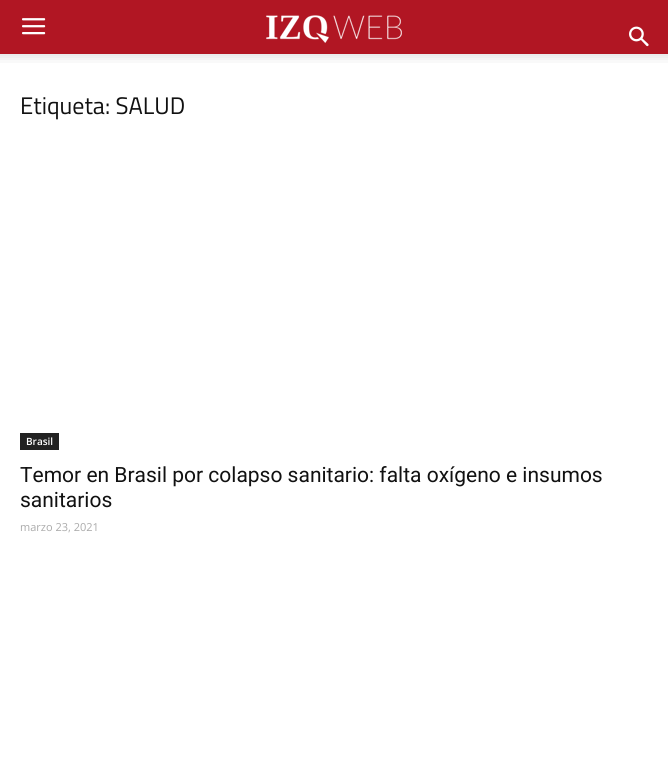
import math
import cairo

surface = cairo.ImageSurface(cairo.Format.RGB24, 668, 761)
ctx = cairo.Context(surface)
options = cairo.FontOptions()
options.set_hint_metrics(cairo.HintMetrics.OFF)
options.set_hint_style(cairo.HintStyle.NONE)
ctx.set_font_options(options)
ctx.set_miter_limit(4)


def ink(r, g, b):
    ctx.set_source_rgb(r / 255, g / 255, b / 255)


def write(x, y, s, family, size, color, bold=False, italic=False):
    ctx.select_font_face(family, cairo.FontSlant.ITALIC if italic else cairo.FontSlant.NORMAL, cairo.FontWeight.BOLD if bold else cairo.FontWeight.NORMAL)
    ctx.set_font_size(size)
    ink(*color)
    ctx.move_to(x, y)
    ctx.show_text(s)


def block(x, y, w, h, *color):
    ink(*color)
    ctx.rectangle(x, y, w, h)
    ctx.fill()


def paste(path, x, y, w, h):
    ctx.save()
    ctx.set_source_surface(cairo.ImageSurface.create_from_png(path), x, y)
    ctx.rectangle(x, y, w, h)
    ctx.fill()
    ctx.restore()


s1 = dict(family="Titillium Web", size=24, color=(17, 17, 17))
s2 = dict(family="Open Sans SemiBold", size=10, color=(255, 255, 255))
s3 = dict(family="Roboto", size=21, color=(17, 17, 17))
s4 = dict(family="Open Sans", size=11, color=(170, 170, 170))

ink(255, 255, 255)
ctx.paint()
block(0, 0, 668, 54, 177, 22, 35)
paste("pic1.png", 22, 18, 24, 17)
paste("pic2.png", 266, 15, 136, 28)
paste("pic3.png", 629, 26, 20, 21)
paste("pic4.png", 0, 54, 668, 9)
write(20, 114, "Etiqueta: SALUD", **s1)
block(20, 433, 39, 17, 34, 34, 34)
write(26, 445, "Brasil", **s2)
write(20, 482, "Temor en Brasil por colapso sanitario: falta oxígeno e insumos", **s3)
write(20, 507, "sanitarios", **s3)
write(20, 531, "marzo 23, 2021", **s4)
surface.write_to_png("screenshot.png")
